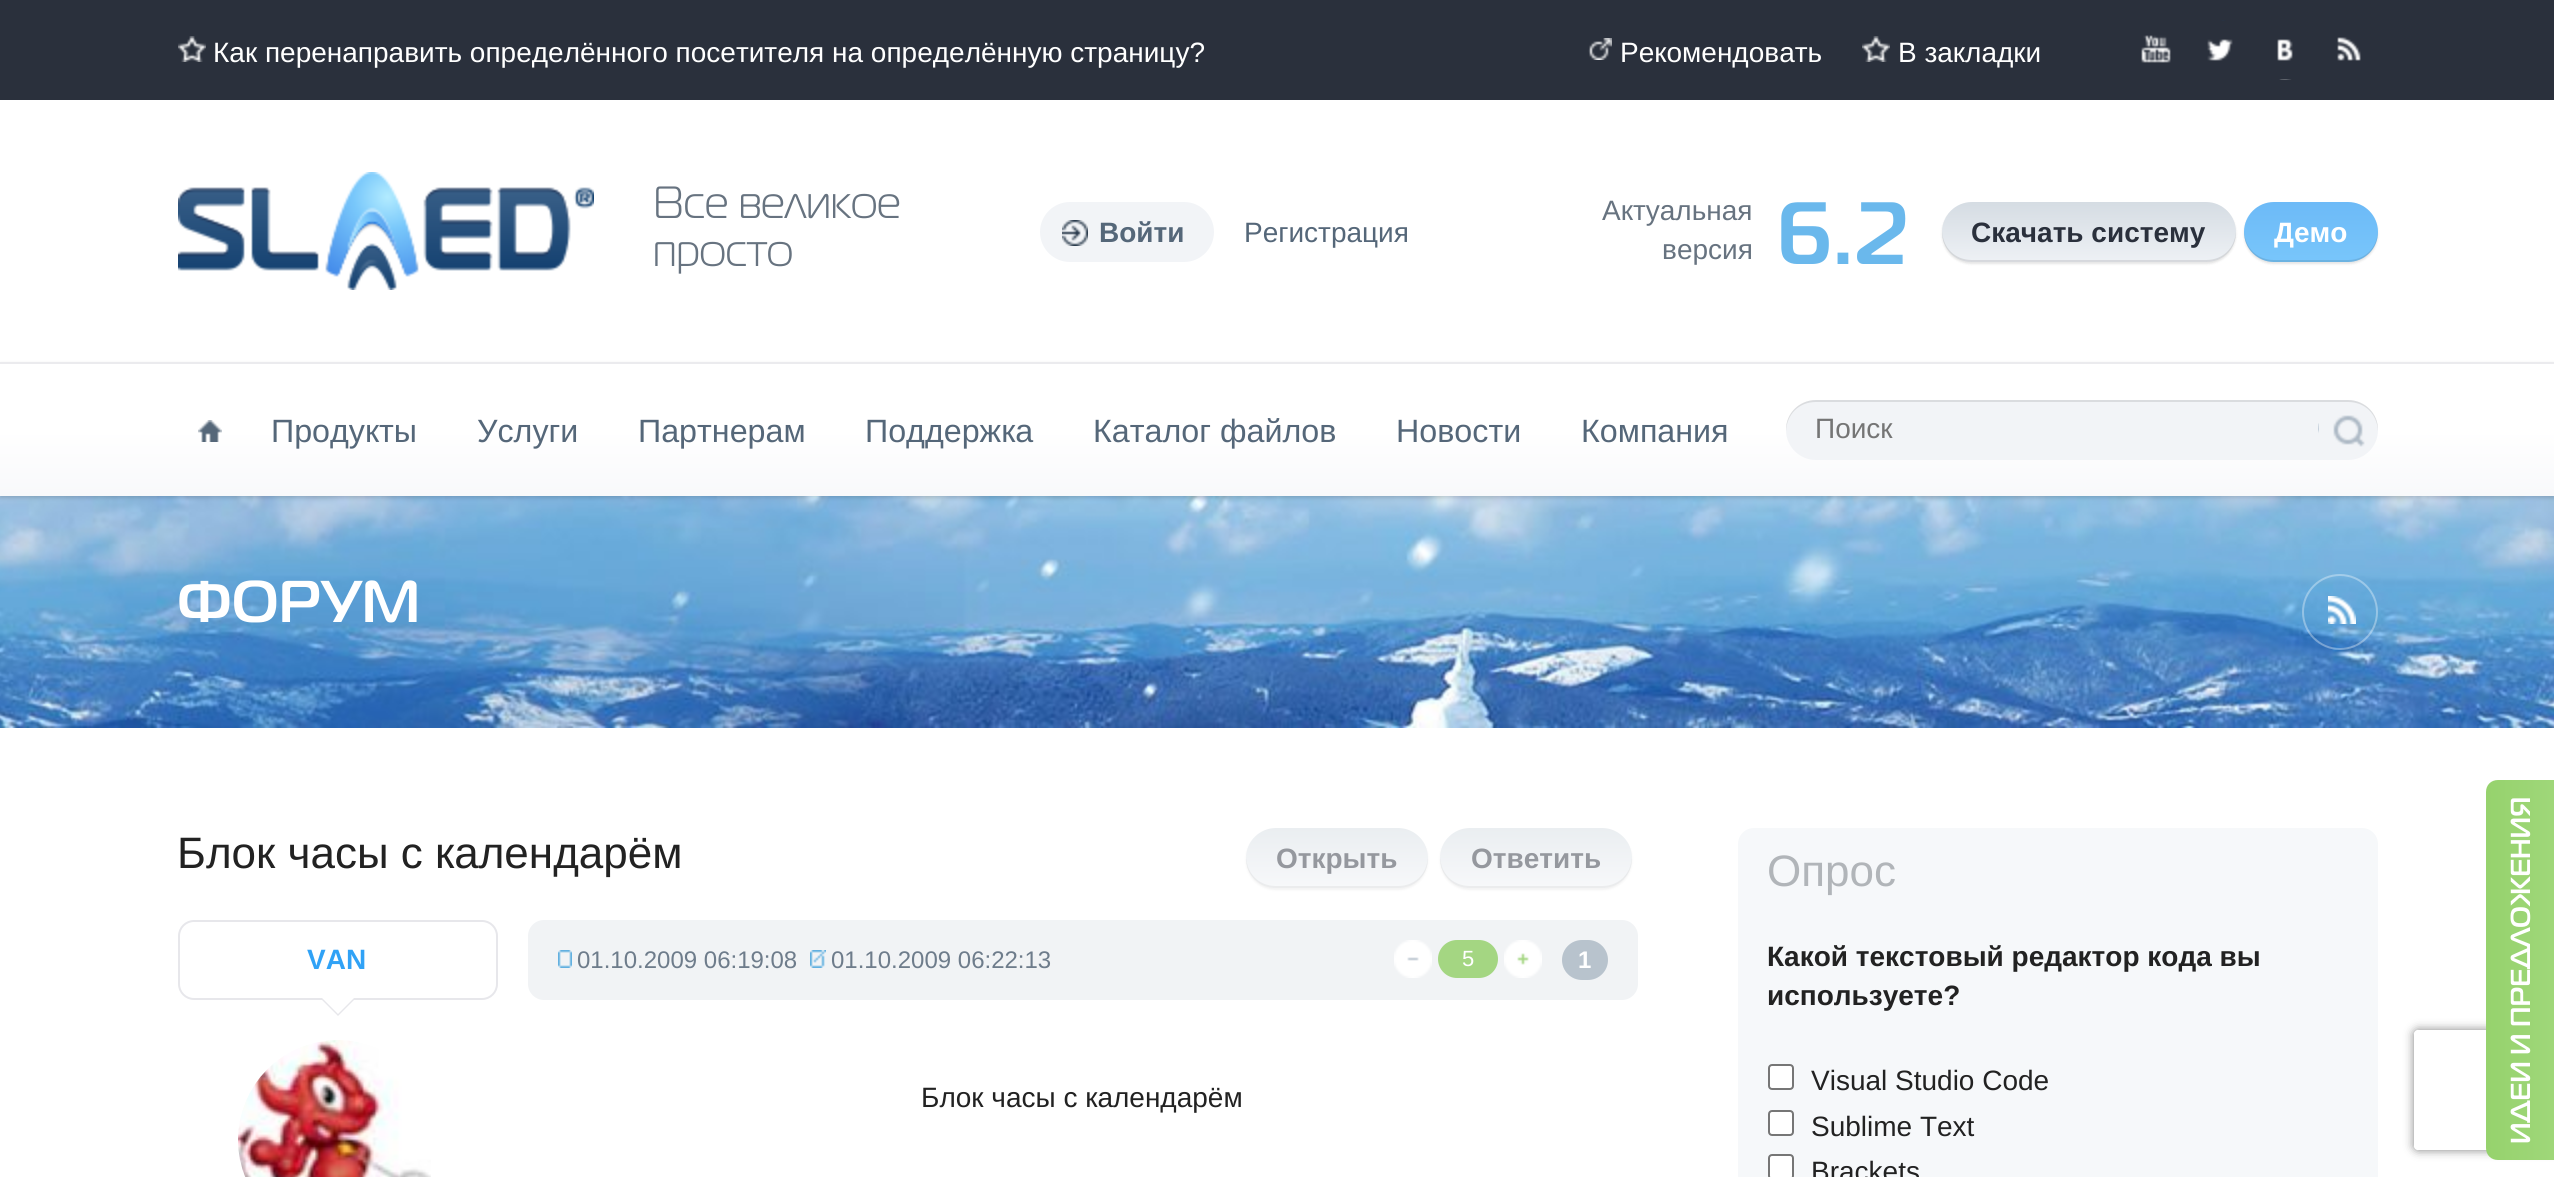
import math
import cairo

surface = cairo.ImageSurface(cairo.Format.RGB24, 2554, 1177)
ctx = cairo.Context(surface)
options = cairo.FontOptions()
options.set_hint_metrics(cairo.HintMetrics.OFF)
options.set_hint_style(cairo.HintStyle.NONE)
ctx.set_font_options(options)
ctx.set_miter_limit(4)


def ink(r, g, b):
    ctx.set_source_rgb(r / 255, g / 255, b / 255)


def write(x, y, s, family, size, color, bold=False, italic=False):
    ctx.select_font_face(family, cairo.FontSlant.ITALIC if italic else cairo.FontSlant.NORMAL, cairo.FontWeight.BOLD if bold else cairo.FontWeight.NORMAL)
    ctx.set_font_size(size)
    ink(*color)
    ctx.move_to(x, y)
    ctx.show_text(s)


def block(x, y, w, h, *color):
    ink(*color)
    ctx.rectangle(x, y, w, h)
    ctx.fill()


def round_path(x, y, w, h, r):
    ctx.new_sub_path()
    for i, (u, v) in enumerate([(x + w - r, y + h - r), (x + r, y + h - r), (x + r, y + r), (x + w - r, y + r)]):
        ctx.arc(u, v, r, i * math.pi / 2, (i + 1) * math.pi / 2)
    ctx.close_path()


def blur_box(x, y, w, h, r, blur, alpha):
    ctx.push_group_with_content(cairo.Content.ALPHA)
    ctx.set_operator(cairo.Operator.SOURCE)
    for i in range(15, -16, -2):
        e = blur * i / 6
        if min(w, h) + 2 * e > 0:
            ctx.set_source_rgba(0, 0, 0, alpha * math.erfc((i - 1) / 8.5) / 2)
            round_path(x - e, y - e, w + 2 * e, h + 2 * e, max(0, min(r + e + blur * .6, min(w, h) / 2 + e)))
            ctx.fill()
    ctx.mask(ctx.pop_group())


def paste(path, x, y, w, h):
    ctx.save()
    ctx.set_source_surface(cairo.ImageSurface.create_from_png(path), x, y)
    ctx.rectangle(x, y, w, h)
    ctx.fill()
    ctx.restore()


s1 = dict(family="Liberation Sans", size=28, color=(255, 255, 255))
s2 = dict(family="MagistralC", size=46, color=(103, 115, 128))
s3 = dict(family="Liberation Sans", size=28, color=(85, 103, 121), bold=True)
s4 = dict(family="Liberation Sans", size=28, color=(85, 103, 121))
s5 = dict(family="Liberation Sans", size=28, color=(103, 115, 128))
s6 = dict(family="MagistralC", size=90, color=(106, 184, 236), bold=True)
s7 = dict(family="Liberation Sans", size=28, color=(42, 48, 60), bold=True)
s8 = dict(family="Liberation Sans", size=28, color=(255, 255, 255), bold=True)
s9 = dict(family="Liberation Sans", size=32.25, color=(85, 103, 121))
s10 = dict(family="Liberation Sans", size=28, color=(117, 117, 117))
s11 = dict(family="MagistralC", size=60, color=(255, 255, 255), bold=True)
s12 = dict(family="Liberation Sans", size=44, color=(34, 34, 34))
s13 = dict(family="Liberation Sans", size=28, color=(149, 152, 158), bold=True)
s14 = dict(family="Liberation Sans", size=28, color=(48, 162, 246), bold=True)
s15 = dict(family="Liberation Sans", size=24, color=(110, 124, 139))
s16 = dict(family="Liberation Sans", size=22, color=(255, 255, 255))
s17 = dict(family="Liberation Sans", size=24, color=(255, 255, 255), bold=True)
s18 = dict(family="Liberation Sans", size=28, color=(34, 34, 34))
s19 = dict(family="Liberation Sans", size=44, color=(177, 181, 185))
s20 = dict(family="Liberation Sans", size=28, color=(34, 34, 34), bold=True)
s21 = dict(family="MagistralC", size=28, color=(255, 255, 255), bold=True)

ink(255, 255, 255)
ctx.paint()
block(0, 0, 2554, 100, 42, 48, 60)
paste("pic1.png", 178, 36, 28, 26)
write(213, 62, "Как перенаправить определённого посетителя на определённую страницу?", **s1)
paste("pic2.png", 1588, 38, 24, 22)
write(1620, 62, "Рекомендовать", **s1)
paste("pic1.png", 1862, 36, 28, 26)
write(1898, 62, "В закладки", **s1)
paste("pic3.png", 2141, 35, 30, 28)
paste("pic4.png", 2207, 20, 26, 41)
paste("pic5.png", 2277, 39, 16, 41)
paste("pic6.png", 2337, 37, 24, 24)
paste("pic7.png", 178, 172, 416, 118)
write(653, 218, "Все великое", **s2)
write(653, 266, "просто", **s2)
ink(242, 244, 247)
round_path(1040, 202, 174, 60, 30)
ctx.fill()
paste("pic8.png", 1062, 220, 26, 26)
write(1099, 242, "Войти", **s3)
write(1244, 242, "Регистрация", **s4)
write(1602, 220, "Aктуальная", **s5)
write(1662, 259, "версия", **s5)
write(1776, 264, "6.2", **s6)
ink(0, 0, 0)
blur_box(1942, 204, 294, 60, 30, 1, 0.1)
gradient = cairo.LinearGradient(2089, 262, 2089, 202)
gradient.add_color_stop_rgba(0, 0.933, 0.945, 0.961, 1)
gradient.add_color_stop_rgba(1, 0.835, 0.863, 0.89, 1)
ctx.set_source(gradient)
round_path(1942, 202, 294, 60, 30)
ctx.fill()
ctx.set_source_rgba(0, 0, 0, 0.1)
ctx.new_path()
ctx.move_to(1942, 231)
ctx.line_to(1942, 232)
ctx.curve_to(1942, 249, 1955, 262, 1972, 262)
ctx.line_to(2206, 262)
ctx.curve_to(2223, 262, 2236, 249, 2236, 232)
ctx.line_to(2236, 231)
ctx.curve_to(2235, 248, 2223, 260, 2206, 260)
ctx.line_to(1972, 260)
ctx.curve_to(1955, 260, 1943, 248, 1942, 231)
ctx.close_path()
ctx.fill()
write(1971, 242, "Скачать систему", **s7)
ink(0, 0, 0)
blur_box(2244, 204, 134, 60, 30, 1, 0.1)
gradient = cairo.LinearGradient(2311, 262, 2311, 202)
gradient.add_color_stop_rgba(0, 0.471, 0.776, 0.984, 1)
gradient.add_color_stop_rgba(1, 0.427, 0.729, 0.969, 1)
ctx.set_source(gradient)
round_path(2244, 202, 134, 60, 30)
ctx.fill()
ctx.set_source_rgba(0, 0, 0, 0.1)
ctx.new_path()
ctx.move_to(2244, 231)
ctx.line_to(2244, 232)
ctx.curve_to(2244, 249, 2257, 262, 2274, 262)
ctx.line_to(2348, 262)
ctx.curve_to(2365, 262, 2378, 249, 2378, 232)
ctx.line_to(2378, 231)
ctx.curve_to(2377, 248, 2365, 260, 2348, 260)
ctx.line_to(2274, 260)
ctx.curve_to(2257, 260, 2245, 248, 2244, 231)
ctx.close_path()
ctx.fill()
write(2274, 242, "Демо", **s8)
paste("pic11.png", 0, 496, 2554, 232)
ink(0, 0, 0)
blur_box(0, 364, 2554, 134, 0, 2, 0.15)
gradient = cairo.LinearGradient(1277, 496, 1277, 364)
gradient.add_color_stop_rgba(0, 0.973, 0.976, 0.984, 1)
gradient.add_color_stop_rgba(0.5, 1, 1, 1, 1)
ctx.set_source(gradient)
ctx.rectangle(0, 364, 2554, 132)
ctx.fill()
block(0, 362, 2554, 2, 235, 235, 238)
paste("pic9.png", 198, 420, 24, 22)
write(271, 442, "Продукты", **s9)
write(477, 442, "Услуги", **s9)
write(638, 442, "Партнерам", **s9)
write(865, 442, "Поддержка", **s9)
write(1093, 442, "Каталог файлов", **s9)
write(1396, 442, "Новости", **s9)
write(1581, 442, "Компания", **s9)
ink(242, 244, 247)
round_path(1786, 400, 592, 60, 30)
ctx.fill()
ctx.set_source_rgba(0, 0, 0, 0.1)
ctx.new_path()
ctx.move_to(1816, 402)
ctx.line_to(2348, 402)
ctx.curve_to(2365, 402, 2377, 414, 2378, 431)
ctx.curve_to(2379, 414, 2365, 400, 2348, 400)
ctx.line_to(1816, 400)
ctx.curve_to(1799, 400, 1785, 414, 1786, 431)
ctx.curve_to(1787, 414, 1799, 402, 1816, 402)
ctx.close_path()
ctx.fill()
write(1815, 438, "Поиск", **s10)
paste("pic10.png", 2318, 415, 47, 32)
write(177, 622, "ФОРУМ", **s11)
ctx.new_path()
ctx.arc(2340, 612, 37, 0, 2 * math.pi)
ctx.set_source_rgba(1, 1, 1, 0.34)
ctx.stroke()
paste("pic12.png", 2328, 596, 28, 28)
write(177, 868, "Блок часы с календарём", **s12)
ink(128, 128, 128)
blur_box(1246, 830, 182, 60, 30, 1, 0.1)
gradient = cairo.LinearGradient(1337, 888, 1337, 828)
gradient.add_color_stop_rgba(0, 0.969, 0.973, 0.98, 1)
gradient.add_color_stop_rgba(1, 0.918, 0.933, 0.945, 1)
ctx.set_source(gradient)
round_path(1246, 828, 182, 60, 30)
ctx.fill()
ctx.set_source_rgba(0.502, 0.502, 0.502, 0.1)
ctx.new_path()
ctx.move_to(1246, 857)
ctx.line_to(1246, 858)
ctx.curve_to(1246, 875, 1259, 888, 1276, 888)
ctx.line_to(1398, 888)
ctx.curve_to(1415, 888, 1428, 875, 1428, 858)
ctx.line_to(1428, 857)
ctx.curve_to(1427, 874, 1415, 886, 1398, 886)
ctx.line_to(1276, 886)
ctx.curve_to(1259, 886, 1247, 874, 1246, 857)
ctx.close_path()
ctx.fill()
write(1276, 868, "Открыть", **s13)
ink(128, 128, 128)
blur_box(1440, 830, 192, 60, 30, 1, 0.1)
gradient = cairo.LinearGradient(1536, 888, 1536, 828)
gradient.add_color_stop_rgba(0, 0.969, 0.973, 0.98, 1)
gradient.add_color_stop_rgba(1, 0.918, 0.933, 0.945, 1)
ctx.set_source(gradient)
round_path(1440, 828, 192, 60, 30)
ctx.fill()
ctx.set_source_rgba(0.502, 0.502, 0.502, 0.1)
ctx.new_path()
ctx.move_to(1440, 857)
ctx.line_to(1440, 858)
ctx.curve_to(1440, 875, 1453, 888, 1470, 888)
ctx.line_to(1602, 888)
ctx.curve_to(1619, 888, 1632, 875, 1632, 858)
ctx.line_to(1632, 857)
ctx.curve_to(1631, 874, 1619, 886, 1602, 886)
ctx.line_to(1470, 886)
ctx.curve_to(1453, 886, 1441, 874, 1440, 857)
ctx.close_path()
ctx.fill()
write(1471, 868, "Ответить", **s13)
round_path(179, 921, 318, 78, 15)
ink(231, 231, 235)
ctx.stroke()
write(307, 969, "VAN", **s14)
ink(231, 231, 235)
ctx.new_path()
ctx.move_to(322, 1000)
ctx.line_to(354, 1000)
ctx.line_to(338, 1016)
ctx.close_path()
ctx.fill()
ink(255, 255, 255)
ctx.new_path()
ctx.move_to(322, 998)
ctx.line_to(354, 998)
ctx.line_to(338, 1014)
ctx.close_path()
ctx.fill()
paste("pic13.png", 238, 1040, 193, 137)
ink(241, 243, 245)
round_path(528, 920, 1110, 80, 16)
ctx.fill()
paste("pic14.png", 558, 950, 14, 18)
write(577, 968, "01.10.2009 06:19:08", **s15)
paste("pic15.png", 810, 950, 16, 18)
write(831, 968, "01.10.2009 06:22:13", **s15)
paste("pic16.png", 1394, 940, 38, 38)
paste("pic17.png", 1504, 940, 38, 38)
ink(164, 214, 130)
round_path(1439, 941, 58, 36, 18)
ctx.fill_preserve()
ctx.stroke()
write(1462, 966, "5", **s16)
ink(184, 195, 205)
round_path(1562, 940, 46, 40, 20)
ctx.fill()
write(1578, 968, "1", **s17)
write(921, 1107, "Блок часы с календарём", **s18)
ink(246, 248, 250)
round_path(1738, 828, 640, 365, 16)
ctx.fill()
write(1767, 886, "Опрос", **s19)
write(1767, 966, "Какой текстовый редактор кода вы", **s20)
write(1767, 1005, "используете?", **s20)
ink(255, 255, 255)
round_path(1769, 1065, 24, 24, 3)
ctx.fill_preserve()
ink(118, 118, 118)
ctx.stroke()
write(1811, 1090, "Visual Studio Code", **s18)
ink(255, 255, 255)
round_path(1769, 1111, 24, 24, 3)
ctx.fill_preserve()
ink(118, 118, 118)
ctx.stroke()
write(1811, 1136, "Sublime Text", **s18)
ink(255, 255, 255)
round_path(1769, 1155, 24, 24, 3)
ctx.fill_preserve()
ink(118, 118, 118)
ctx.stroke()
write(1811, 1181, "Brackets", **s18)
ctx.save()
ctx.set_fill_rule(cairo.FillRule.EVEN_ODD)
ctx.new_path()
ctx.move_to(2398, 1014)
ctx.line_to(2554, 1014)
ctx.line_to(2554, 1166)
ctx.line_to(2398, 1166)
ctx.close_path()
ctx.move_to(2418, 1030)
ctx.line_to(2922, 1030)
ctx.curve_to(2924, 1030, 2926, 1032, 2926, 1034)
ctx.line_to(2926, 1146)
ctx.curve_to(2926, 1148, 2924, 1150, 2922, 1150)
ctx.line_to(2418, 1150)
ctx.curve_to(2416, 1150, 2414, 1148, 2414, 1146)
ctx.line_to(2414, 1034)
ctx.curve_to(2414, 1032, 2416, 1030, 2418, 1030)
ctx.close_path()
ctx.clip()
ink(128, 128, 128)
blur_box(2414, 1030, 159, 120, 4, 5, 1)
ctx.restore()
gradient = cairo.LinearGradient(2554, 970, 2486, 970)
gradient.add_color_stop_rgba(0, 0.624, 0.843, 0.475, 1)
gradient.add_color_stop_rgba(1, 0.588, 0.824, 0.427, 1)
ctx.set_source(gradient)
ctx.new_path()
ctx.move_to(2486, 1148)
ctx.line_to(2486, 792)
ctx.curve_to(2486, 785, 2491, 780, 2498, 780)
ctx.line_to(2554, 780)
ctx.line_to(2554, 1160)
ctx.line_to(2498, 1160)
ctx.curve_to(2491, 1160, 2486, 1155, 2486, 1148)
ctx.close_path()
ctx.fill()
ctx.save()
ctx.translate(2530, 1144)
ctx.rotate(-90 * math.pi / 180)
write(0, 0, "ИДЕИ И ПРЕДЛОЖЕНИЯ", **s21)
ctx.restore()
surface.write_to_png("screenshot.png")
